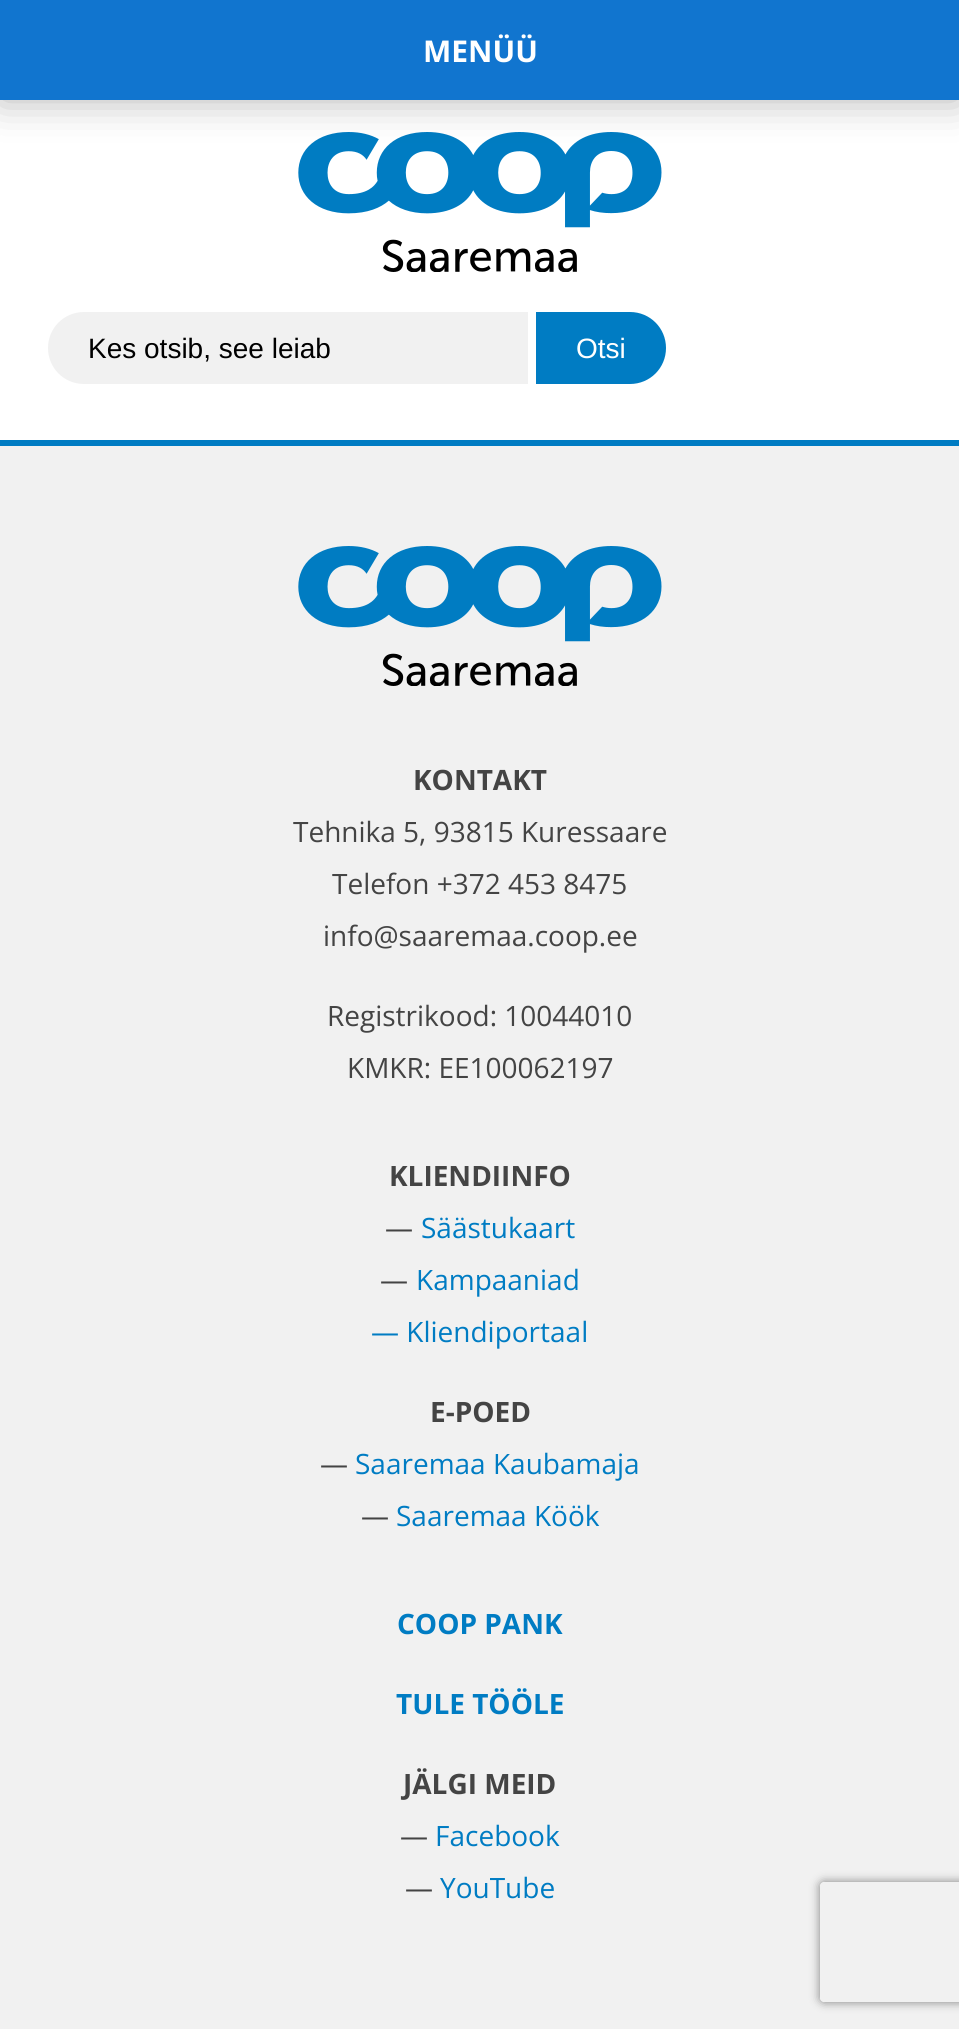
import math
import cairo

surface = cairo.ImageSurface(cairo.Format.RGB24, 959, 2029)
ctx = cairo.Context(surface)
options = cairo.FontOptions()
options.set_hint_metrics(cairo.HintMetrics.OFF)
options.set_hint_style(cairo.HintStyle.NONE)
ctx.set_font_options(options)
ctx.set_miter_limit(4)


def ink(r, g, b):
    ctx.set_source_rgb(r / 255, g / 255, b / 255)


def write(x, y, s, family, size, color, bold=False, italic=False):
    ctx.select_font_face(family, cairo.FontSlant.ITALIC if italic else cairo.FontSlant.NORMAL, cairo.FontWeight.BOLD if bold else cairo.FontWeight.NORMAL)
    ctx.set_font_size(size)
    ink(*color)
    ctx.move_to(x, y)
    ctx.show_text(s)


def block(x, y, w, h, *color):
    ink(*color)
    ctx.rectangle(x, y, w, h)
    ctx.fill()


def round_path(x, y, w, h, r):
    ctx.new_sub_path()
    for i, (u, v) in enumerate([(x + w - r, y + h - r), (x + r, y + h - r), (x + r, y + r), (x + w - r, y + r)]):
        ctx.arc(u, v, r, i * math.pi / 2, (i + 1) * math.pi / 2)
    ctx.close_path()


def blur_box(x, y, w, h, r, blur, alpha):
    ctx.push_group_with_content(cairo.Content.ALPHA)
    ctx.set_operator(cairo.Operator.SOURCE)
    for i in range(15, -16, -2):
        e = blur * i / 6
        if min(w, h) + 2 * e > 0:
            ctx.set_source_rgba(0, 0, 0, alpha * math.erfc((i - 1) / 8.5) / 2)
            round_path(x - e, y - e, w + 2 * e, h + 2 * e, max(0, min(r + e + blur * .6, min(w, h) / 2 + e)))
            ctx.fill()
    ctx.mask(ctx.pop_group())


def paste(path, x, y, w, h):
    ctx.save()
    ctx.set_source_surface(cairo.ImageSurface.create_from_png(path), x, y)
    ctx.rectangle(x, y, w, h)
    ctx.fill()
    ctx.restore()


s1 = dict(family="Open Sans", size=30, color=(255, 255, 255), bold=True)
s2 = dict(family="Liberation Sans", size=28, color=(0, 0, 0))
s3 = dict(family="Liberation Sans", size=28, color=(255, 255, 255))
s4 = dict(family="Open Sans", size=28, color=(68, 68, 68), bold=True)
s5 = dict(family="Open Sans", size=28, color=(68, 68, 68))
s6 = dict(family="Open Sans", size=28, color=(0, 124, 195))
s7 = dict(family="Open Sans", size=28, color=(0, 124, 195), bold=True)

ink(255, 255, 255)
ctx.paint()
paste("pic1.png", 298, 132, 364, 140)
ink(0, 0, 0)
blur_box(0, 0, 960, 100, 0, 20, 0.3)
block(0, 0, 959, 100, 17, 117, 207)
write(423, 62, "MENÜÜ", **s1)
ink(241, 241, 241)
ctx.new_path()
ctx.move_to(84, 312)
ctx.line_to(528, 312)
ctx.line_to(528, 384)
ctx.line_to(84, 384)
ctx.curve_to(64, 384, 48, 368, 48, 348)
ctx.curve_to(48, 328, 64, 312, 84, 312)
ctx.close_path()
ctx.fill()
write(88, 358, "Kes otsib, see leiab", **s2)
ink(0, 124, 195)
ctx.new_path()
ctx.move_to(536, 312)
ctx.line_to(630, 312)
ctx.curve_to(650, 312, 666, 328, 666, 348)
ctx.curve_to(666, 368, 650, 384, 630, 384)
ctx.line_to(536, 384)
ctx.close_path()
ctx.fill()
write(576, 358, "Otsi", **s3)
block(0, 440, 959, 6, 0, 124, 195)
block(0, 446, 959, 1583, 241, 241, 241)
paste("pic2.png", 298, 546, 364, 140)
write(413, 790, "KONTAKT", **s4)
write(293, 842, "Tehnika 5, 93815 Kuressaare", **s5)
write(332, 894, "Telefon +372 453 8475", **s5)
write(323, 946, "info@saaremaa.coop.ee", **s5)
write(327, 1026, "Registrikood: 10044010", **s5)
write(347, 1078, "KMKR: EE100062197", **s5)
write(389, 1186, "KLIENDIINFO", **s4)
write(385, 1238, "—", **s5)
write(421, 1238, "Säästukaart", **s6)
write(380, 1290, "—", **s5)
write(416, 1290, "Kampaaniad", **s6)
write(371, 1342, "— Kliendiportaal", **s6)
write(430, 1422, "E-POED", **s4)
write(320, 1474, "—", **s5)
write(355, 1474, "Saaremaa Kaubamaja", **s6)
write(361, 1526, "—", **s5)
write(396, 1526, "Saaremaa Köök", **s6)
write(397, 1634, "COOP PANK", **s7)
write(396, 1714, "TULE TÖÖLE", **s7)
write(403, 1794, "JÄLGI MEID", **s4)
write(400, 1846, "—", **s5)
write(435, 1846, "Facebook", **s6)
write(405, 1898, "—", **s5)
write(440, 1898, "YouTube", **s6)
ctx.save()
ctx.set_fill_rule(cairo.FillRule.EVEN_ODD)
ctx.new_path()
ctx.move_to(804, 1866)
ctx.line_to(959, 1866)
ctx.line_to(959, 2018)
ctx.line_to(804, 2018)
ctx.close_path()
ctx.move_to(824, 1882)
ctx.line_to(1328, 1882)
ctx.curve_to(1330, 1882, 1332, 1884, 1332, 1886)
ctx.line_to(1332, 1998)
ctx.curve_to(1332, 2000, 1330, 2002, 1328, 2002)
ctx.line_to(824, 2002)
ctx.curve_to(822, 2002, 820, 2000, 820, 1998)
ctx.line_to(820, 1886)
ctx.curve_to(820, 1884, 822, 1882, 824, 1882)
ctx.close_path()
ctx.clip()
ink(128, 128, 128)
blur_box(820, 1882, 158, 120, 4, 5, 1)
ctx.restore()
surface.write_to_png("screenshot.png")
